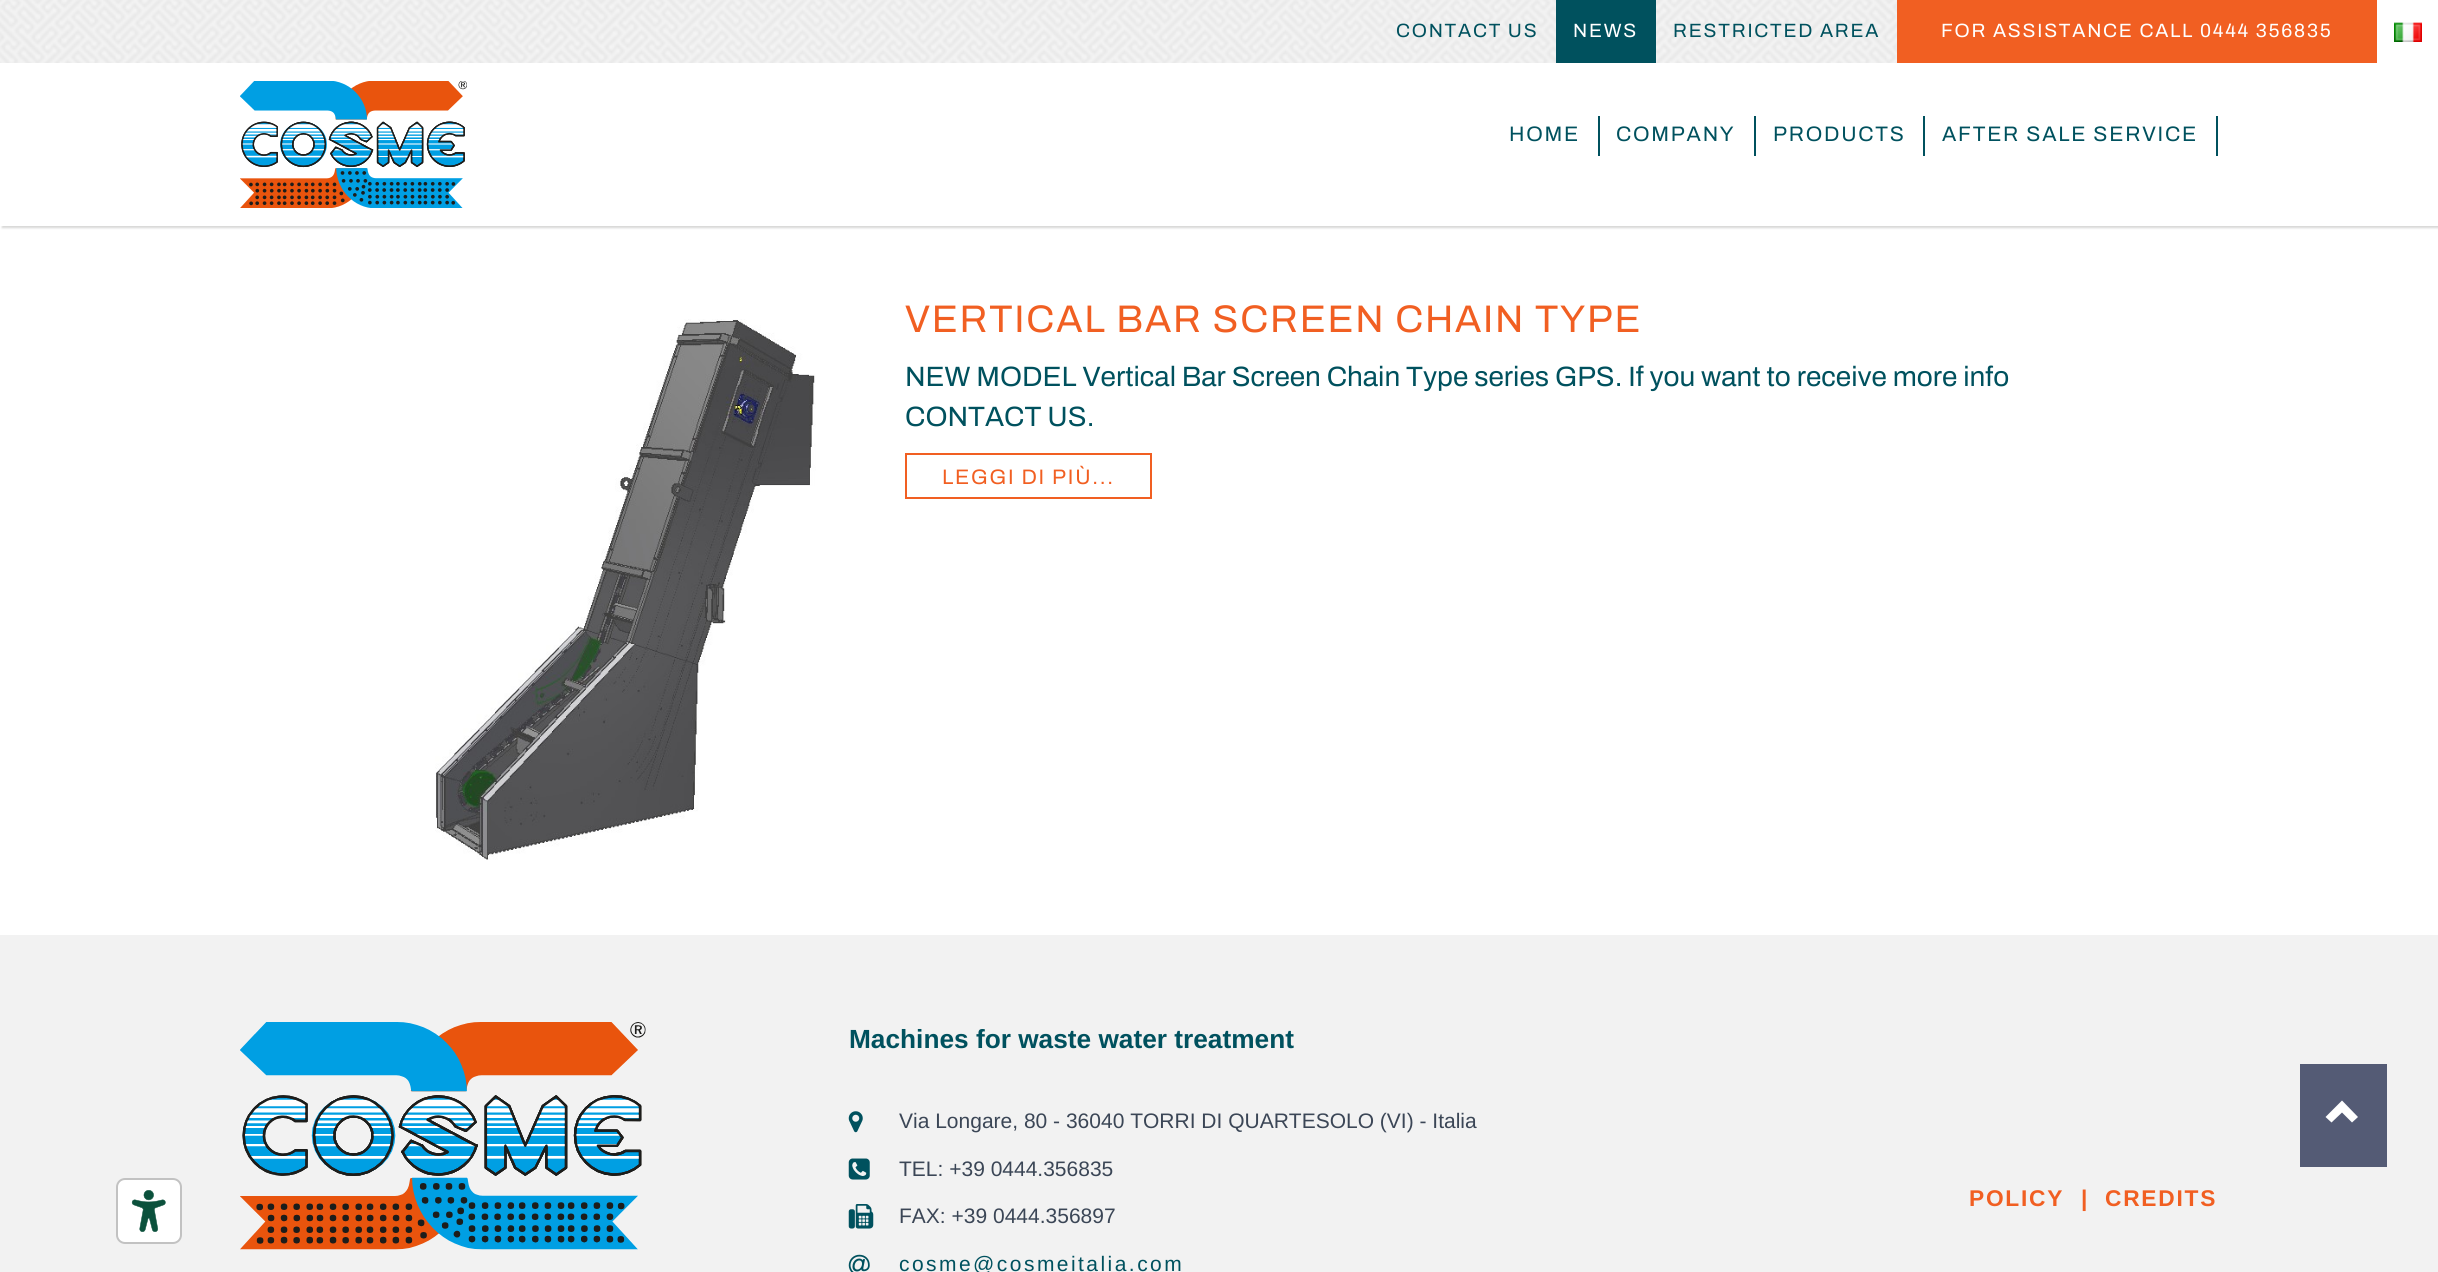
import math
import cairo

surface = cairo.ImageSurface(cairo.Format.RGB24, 2438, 1272)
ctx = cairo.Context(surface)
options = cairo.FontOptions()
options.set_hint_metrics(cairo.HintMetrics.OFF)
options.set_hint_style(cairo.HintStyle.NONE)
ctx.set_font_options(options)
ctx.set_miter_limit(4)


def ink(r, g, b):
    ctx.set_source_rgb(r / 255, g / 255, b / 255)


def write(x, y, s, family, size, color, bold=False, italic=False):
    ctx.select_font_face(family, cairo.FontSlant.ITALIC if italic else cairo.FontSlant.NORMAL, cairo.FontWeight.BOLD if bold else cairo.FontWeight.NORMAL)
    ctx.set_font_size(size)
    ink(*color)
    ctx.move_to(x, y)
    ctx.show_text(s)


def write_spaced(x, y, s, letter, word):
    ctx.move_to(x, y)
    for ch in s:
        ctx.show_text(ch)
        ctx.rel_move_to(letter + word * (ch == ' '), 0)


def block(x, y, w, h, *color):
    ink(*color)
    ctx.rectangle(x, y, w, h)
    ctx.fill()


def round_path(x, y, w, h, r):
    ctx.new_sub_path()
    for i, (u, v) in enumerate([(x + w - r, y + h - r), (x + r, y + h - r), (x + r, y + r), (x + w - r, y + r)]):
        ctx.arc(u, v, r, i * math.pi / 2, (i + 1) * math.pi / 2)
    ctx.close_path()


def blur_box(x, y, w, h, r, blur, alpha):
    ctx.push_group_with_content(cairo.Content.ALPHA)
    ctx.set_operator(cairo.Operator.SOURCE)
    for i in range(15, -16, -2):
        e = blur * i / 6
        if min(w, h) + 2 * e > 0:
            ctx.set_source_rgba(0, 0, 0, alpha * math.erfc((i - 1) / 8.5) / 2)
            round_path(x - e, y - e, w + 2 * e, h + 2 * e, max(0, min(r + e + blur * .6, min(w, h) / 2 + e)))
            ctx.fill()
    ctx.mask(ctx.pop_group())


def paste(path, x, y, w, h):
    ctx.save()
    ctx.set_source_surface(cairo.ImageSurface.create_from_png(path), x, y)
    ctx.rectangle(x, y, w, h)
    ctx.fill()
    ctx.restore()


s1 = dict(family="Archivo SemiBold", size=28, color=(0, 81, 94))
s2 = dict(family="Liberation Sans", size=26.25, color=(0, 81, 94), bold=True)
s3 = dict(family="Liberation Sans", size=21, color=(59, 70, 86))

ink(255, 255, 255)
ctx.paint()
block(0, 935, 2438, 337, 242, 242, 242)
ink(255, 255, 255)
round_path(116, 1178, 66, 66, 9)
ctx.fill()
paste("pic1.png", 131, 1190, 35, 42)
round_path(117, 1179, 64, 64, 8)
ctx.set_source_rgba(0, 0, 0, 0.24)
ctx.stroke()
ctx.save()
ctx.set_fill_rule(cairo.FillRule.EVEN_ODD)
ctx.new_path()
ctx.move_to(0, 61)
ctx.line_to(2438, 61)
ctx.line_to(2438, 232)
ctx.line_to(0, 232)
ctx.close_path()
ctx.move_to(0, 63)
ctx.line_to(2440, 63)
ctx.line_to(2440, 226)
ctx.line_to(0, 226)
ctx.close_path()
ctx.clip()
ink(176, 176, 174)
blur_box(2, 65, 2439, 163, 0, 1, 0.5)
ctx.restore()
paste("pic2.png", 0, 0, 1897, 63)
ctx.select_font_face("Archivo SemiBold")
ctx.set_font_size(19.25)
ink(0, 81, 94)
write_spaced(1396, 37, "CONTACT US", 1.75, 0)
block(1556, 0, 100, 63, 0, 81, 94)
ink(255, 255, 255)
write_spaced(1573, 37, "NEWS", 1.75, 0)
ink(0, 81, 94)
write_spaced(1673, 37, "RESTRICTED AREA", 1.75, 0)
block(1897, 0, 480, 63, 241, 95, 34)
ink(255, 255, 255)
write_spaced(1941, 37, "FOR ASSISTANCE CALL 0444 356835", 1.75, 0)
paste("pic3.png", 2394, 22, 28, 20)
ctx.set_source_rgba(1, 1, 1, 0.95)
ctx.rectangle(1, 225, 2437, 1)
ctx.fill()
paste("pic4.png", 240, 81, 227, 127)
block(1598, 116, 2, 40, 0, 81, 94)
ctx.set_font_size(21)
write_spaced(1509, 141, "HOME", 1.75, 0)
block(1754, 116, 2, 40, 0, 81, 94)
write_spaced(1616, 141, "COMPANY", 1.75, 0)
block(1923, 116, 2, 40, 0, 81, 94)
write_spaced(1773, 141, "PRODUCTS", 1.75, 0)
block(2216, 116, 2, 40, 0, 81, 94)
write_spaced(1942, 141, "AFTER SALE SERVICE", 1.75, 0)
paste("pic5.png", 435, 319, 381, 541)
ctx.set_font_size(38.5)
ink(241, 95, 34)
write_spaced(905, 332, "VERTICAL BAR SCREEN CHAIN TYPE", 1.75, 0)
write(905, 386, "NEW MODEL Vertical Bar Screen Chain Type series GPS. If you want to receive more info", **s1)
write(905, 426, "CONTACT US.", **s1)
ctx.rectangle(906, 454, 245, 44)
ink(241, 95, 34)
ctx.stroke()
ctx.set_font_size(21)
write_spaced(942, 484, "LEGGI DI PIÙ...", 1.75, 0)
paste("pic6.png", 240, 1022, 406, 228)
write(849, 1048, "Machines for waste water treatment", **s2)
paste("pic7.png", 848, 1111, 15, 22)
write(899, 1128, "Via Longare, 80 - 36040 TORRI DI QUARTESOLO (VI) - Italia", **s3)
paste("pic8.png", 848, 1158, 22, 22)
write(899, 1176, "TEL: +39 0444.356835", **s3)
paste("pic9.png", 848, 1204, 26, 25)
write(899, 1223, "FAX: +39 0444.356897", **s3)
paste("pic10.png", 848, 1254, 22, 18)
ink(0, 81, 94)
write_spaced(899, 1271, "cosme@cosmeitalia.com", 2.45, 0)
ctx.select_font_face("Liberation Sans", cairo.FontSlant.NORMAL, cairo.FontWeight.BOLD)
ctx.set_font_size(22.75)
ink(241, 95, 34)
write_spaced(1969, 1206, "POLICY", 1.75, 0)
write_spaced(2081, 1206, "|", 1.75, 0)
write_spaced(2105, 1206, "CREDITS", 1.75, 0)
block(2300, 1064, 87, 103, 84, 91, 117)
ink(255, 255, 255)
ctx.new_path()
ctx.move_to(2358, 1117)
ctx.line_to(2352, 1122.5)
ctx.line_to(2342, 1112.5)
ctx.line_to(2331.5, 1122.5)
ctx.line_to(2325.5, 1117)
ctx.line_to(2342, 1100.5)
ctx.close_path()
ctx.fill()
surface.write_to_png("screenshot.png")
